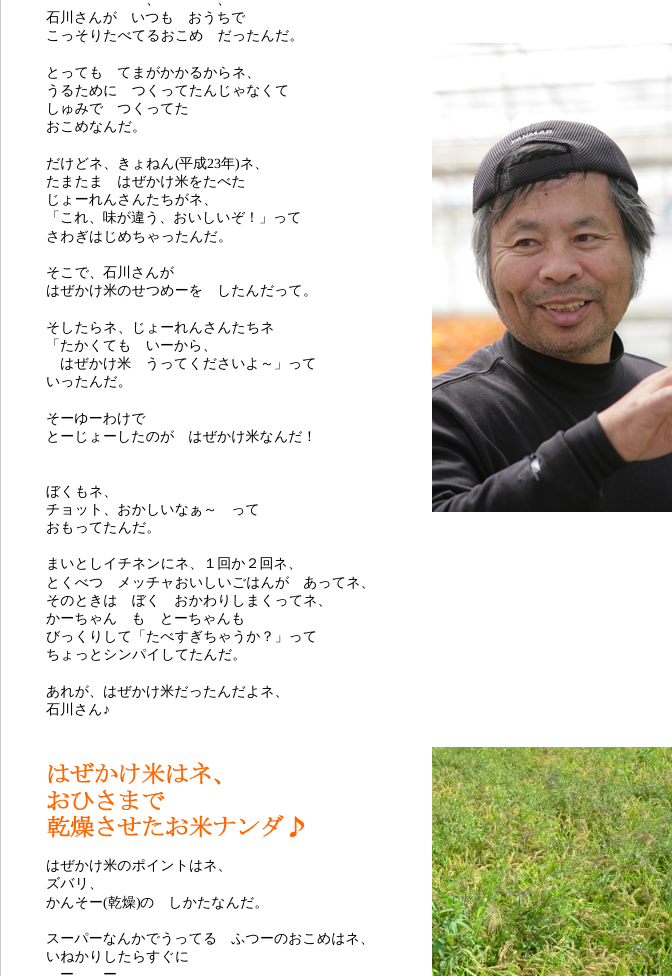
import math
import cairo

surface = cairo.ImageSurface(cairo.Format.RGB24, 672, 976)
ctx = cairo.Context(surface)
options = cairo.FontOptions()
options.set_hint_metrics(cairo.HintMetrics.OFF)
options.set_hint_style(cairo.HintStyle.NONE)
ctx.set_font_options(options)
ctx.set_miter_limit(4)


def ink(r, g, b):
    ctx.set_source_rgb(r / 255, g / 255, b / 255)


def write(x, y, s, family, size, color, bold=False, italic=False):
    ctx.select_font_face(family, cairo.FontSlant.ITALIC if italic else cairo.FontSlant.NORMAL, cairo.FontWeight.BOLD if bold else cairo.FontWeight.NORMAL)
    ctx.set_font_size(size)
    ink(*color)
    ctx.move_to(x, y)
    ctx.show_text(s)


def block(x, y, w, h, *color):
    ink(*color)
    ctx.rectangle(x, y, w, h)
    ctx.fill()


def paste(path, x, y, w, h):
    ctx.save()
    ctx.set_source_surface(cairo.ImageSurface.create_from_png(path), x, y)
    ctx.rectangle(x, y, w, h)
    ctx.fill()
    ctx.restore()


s1 = dict(family="WenQuanYi Zen Hei Medium", size=14, color=(0, 0, 0))
s2 = dict(family="Liberation Serif", size=14, color=(0, 0, 0))

ink(204, 204, 204)
ctx.paint()
block(1, 0, 671, 976, 255, 255, 255)
write(146, 4, "、", **s1)
write(217, 4, "、", **s1)
write(46, 22, "石川さんが　いつも　おうちで", **s1)
write(46, 40, "こっそりたべてるおこめ　だったんだ。", **s1)
write(46, 77, "とっても　てまがかかるからネ、", **s1)
write(46, 95, "うるために　つくってたんじゃなくて", **s1)
write(46, 113, "しゅみで　つくってた", **s1)
write(46, 131, "おこめなんだ。", **s1)
write(46, 168, "だけどネ、きょねん", **s1)
write(175, 168, "(", **s2)
write(179, 168, "平成", **s1)
write(207, 168, "23", **s2)
write(221, 168, "年", **s1)
write(235, 168, ")", **s2)
write(240, 168, "ネ、", **s1)
write(46, 186, "たまたま　はぜかけ米をたべた", **s1)
write(46, 204, "じょーれんさんたちがネ、", **s1)
write(46, 222, "「これ、味が違う、おいしいぞ！」って", **s1)
write(46, 241, "さわぎはじめちゃったんだ。", **s1)
write(46, 277, "そこで、石川さんが", **s1)
write(46, 295, "はぜかけ米のせつめーを　したんだって。", **s1)
write(46, 332, "そしたらネ、じょーれんさんたちネ", **s1)
write(46, 350, "「たかくても　いーから、", **s1)
write(60, 368, "はぜかけ米　うってくださいよ～」って", **s1)
write(46, 386, "いったんだ。", **s1)
write(46, 423, "そーゆーわけで", **s1)
write(46, 441, "とーじょーしたのが　はぜかけ米なんだ！", **s1)
write(46, 496, "ぼくもネ、", **s1)
write(46, 514, "チョット、おかしいなぁ～　って", **s1)
write(46, 532, "おもってたんだ。", **s1)
write(46, 568, "まいとしイチネンにネ、１回か２回ネ、", **s1)
write(46, 587, "とくべつ　メッチャおいしいごはんが　あってネ、", **s1)
write(46, 605, "そのときは　ぼく　おかわりしまくってネ、", **s1)
write(46, 623, "かーちゃん　も　とーちゃんも", **s1)
write(46, 641, "びっくりして「たべすぎちゃうか？」って", **s1)
write(46, 659, "ちょっとシンパイしてたんだ。", **s1)
write(46, 696, "あれが、はぜかけ米だったんだよネ、", **s1)
write(46, 714, "石川さん", **s1)
write(103, 714, "♪", **s2)
paste("pic1.png", 432, 43, 240, 469)
paste("pic2.png", 47, 762, 258, 76)
write(46, 870, "はぜかけ米のポイントはネ、", **s1)
write(46, 888, "ズバリ、", **s1)
write(46, 907, "かんそー", **s1)
write(103, 907, "(", **s2)
write(108, 907, "乾燥", **s1)
write(136, 907, ")", **s2)
write(140, 907, "の　しかたなんだ。", **s1)
write(46, 943, "スーパーなんかでうってる　ふつーのおこめはネ、", **s1)
write(46, 961, "いねかりしたらすぐに", **s1)
write(60, 979, "ー", **s1)
write(103, 979, "ー", **s1)
paste("pic3.png", 432, 747, 240, 229)
surface.write_to_png("screenshot.png")
